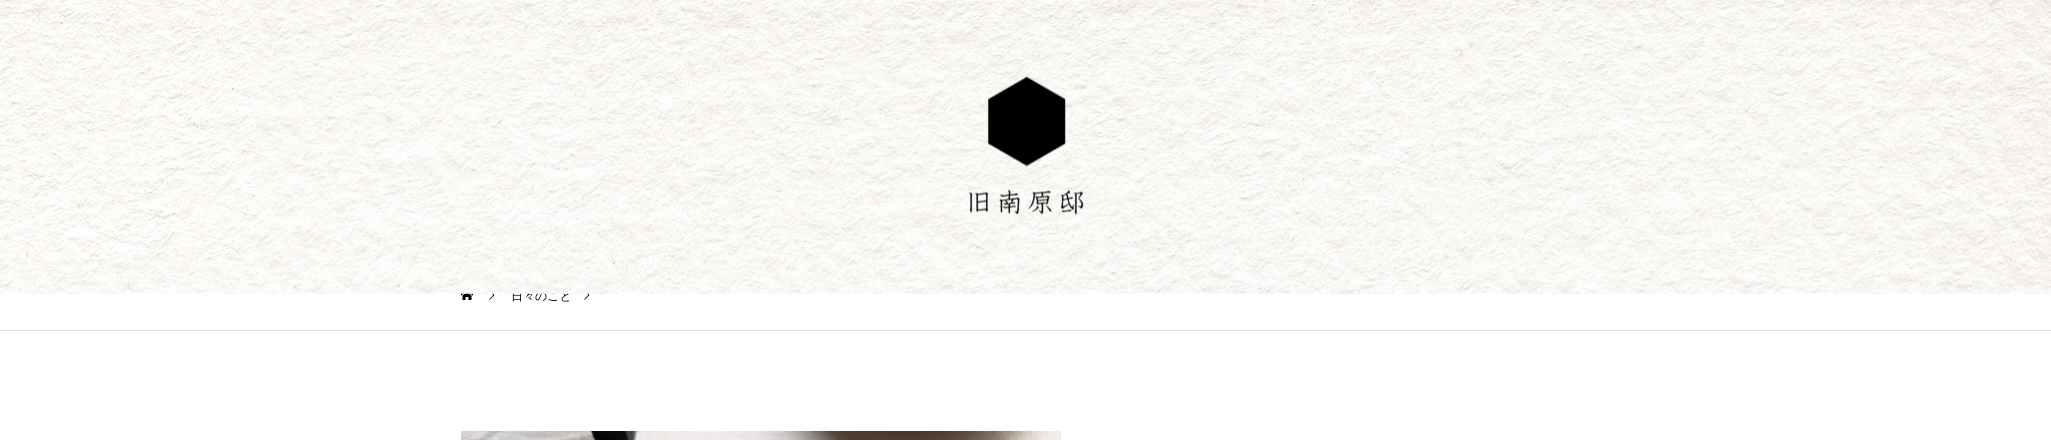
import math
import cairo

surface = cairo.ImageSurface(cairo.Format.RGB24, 2051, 440)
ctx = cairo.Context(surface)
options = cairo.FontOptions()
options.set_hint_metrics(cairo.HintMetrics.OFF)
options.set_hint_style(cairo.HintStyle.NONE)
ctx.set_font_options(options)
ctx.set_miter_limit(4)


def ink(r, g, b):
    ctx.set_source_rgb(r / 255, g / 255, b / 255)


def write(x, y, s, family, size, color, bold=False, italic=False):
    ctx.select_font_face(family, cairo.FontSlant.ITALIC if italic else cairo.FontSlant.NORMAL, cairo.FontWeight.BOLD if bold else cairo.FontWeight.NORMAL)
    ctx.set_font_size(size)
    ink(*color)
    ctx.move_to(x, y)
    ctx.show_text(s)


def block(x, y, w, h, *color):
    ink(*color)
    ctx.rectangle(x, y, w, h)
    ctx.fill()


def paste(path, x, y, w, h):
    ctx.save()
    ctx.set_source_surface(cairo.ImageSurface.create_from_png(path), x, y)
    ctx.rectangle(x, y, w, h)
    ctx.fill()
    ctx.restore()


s1 = dict(family="WenQuanYi Zen Hei Medium", size=12, color=(0, 0, 0))

ink(255, 255, 255)
ctx.paint()
paste("pic3.png", 461, 293, 12, 7)
paste("pic4.png", 489, 293, 6, 7)
write(511, 300, "日々のこと", **s1)
paste("pic4.png", 584, 293, 6, 7)
paste("pic1.png", 0, 0, 2051, 294)
paste("pic2.png", 969, 76, 115, 139)
block(0, 330, 2051, 1, 221, 221, 221)
paste("pic5.png", 461, 431, 600, 9)
surface.write_to_png("screenshot.png")
